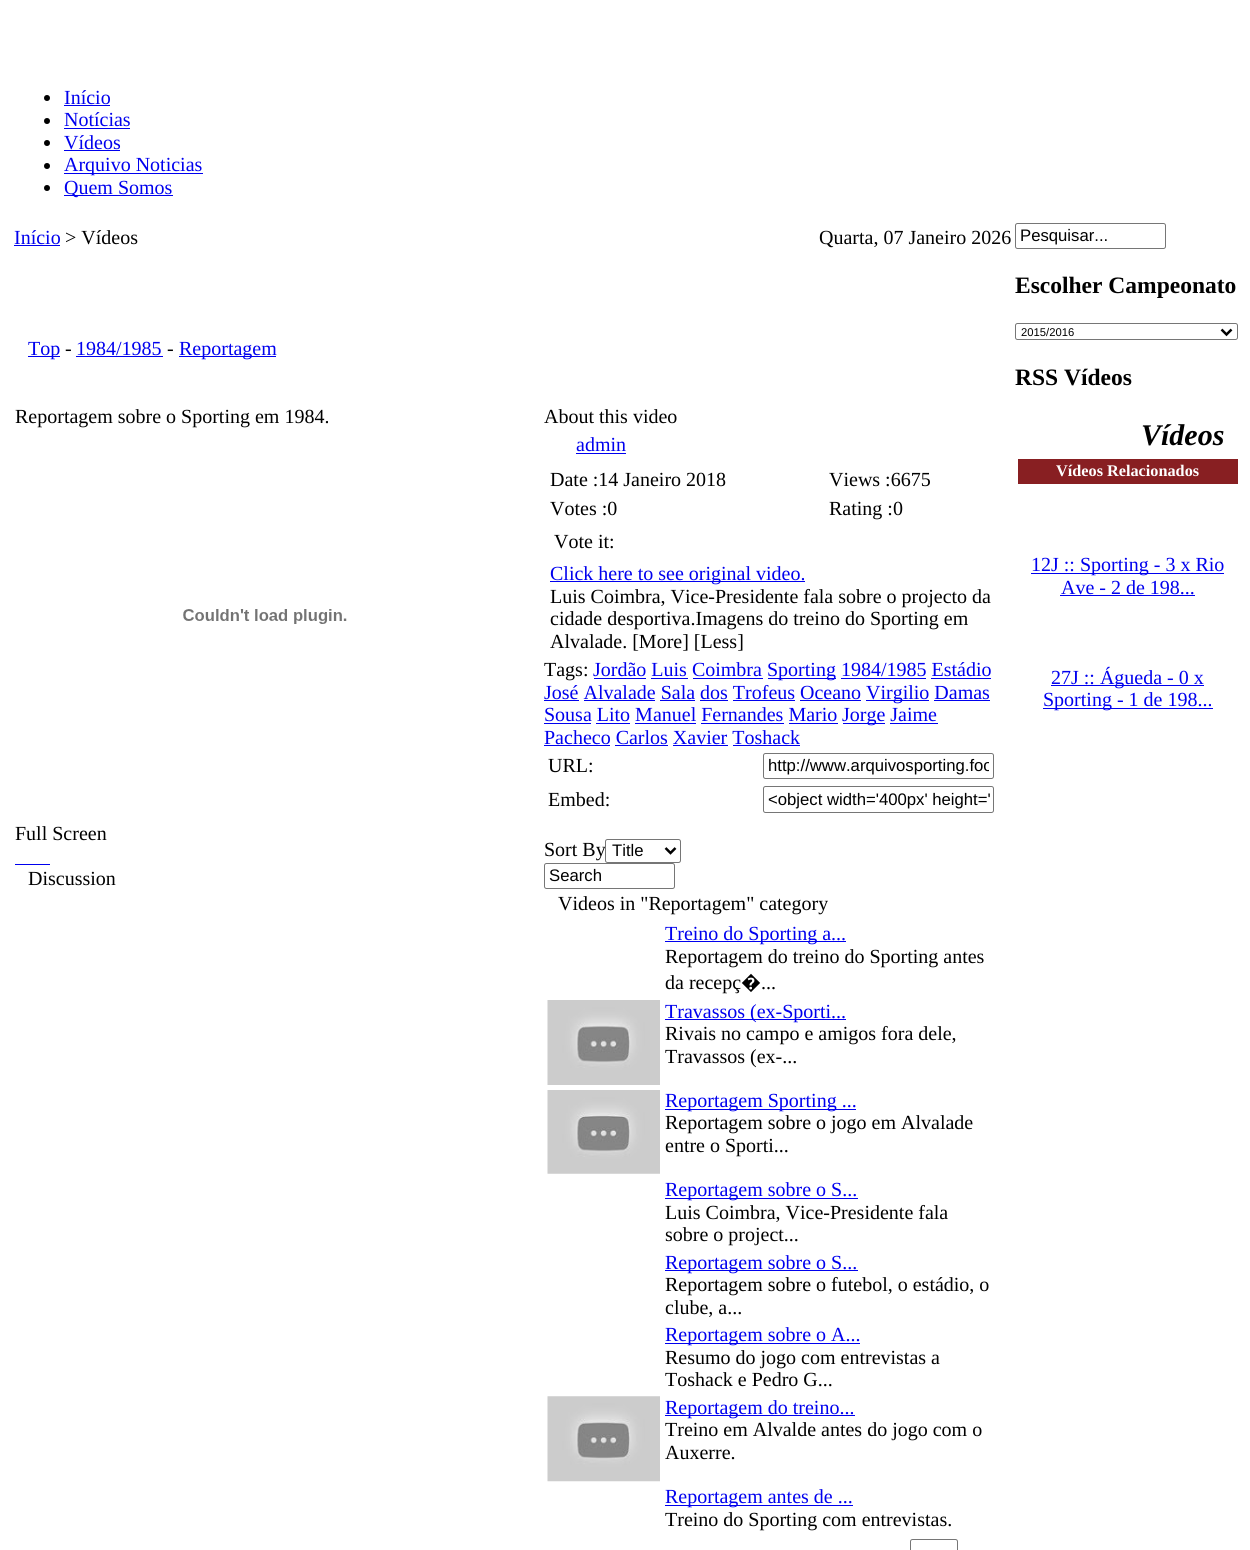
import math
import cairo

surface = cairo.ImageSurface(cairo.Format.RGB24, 1250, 1550)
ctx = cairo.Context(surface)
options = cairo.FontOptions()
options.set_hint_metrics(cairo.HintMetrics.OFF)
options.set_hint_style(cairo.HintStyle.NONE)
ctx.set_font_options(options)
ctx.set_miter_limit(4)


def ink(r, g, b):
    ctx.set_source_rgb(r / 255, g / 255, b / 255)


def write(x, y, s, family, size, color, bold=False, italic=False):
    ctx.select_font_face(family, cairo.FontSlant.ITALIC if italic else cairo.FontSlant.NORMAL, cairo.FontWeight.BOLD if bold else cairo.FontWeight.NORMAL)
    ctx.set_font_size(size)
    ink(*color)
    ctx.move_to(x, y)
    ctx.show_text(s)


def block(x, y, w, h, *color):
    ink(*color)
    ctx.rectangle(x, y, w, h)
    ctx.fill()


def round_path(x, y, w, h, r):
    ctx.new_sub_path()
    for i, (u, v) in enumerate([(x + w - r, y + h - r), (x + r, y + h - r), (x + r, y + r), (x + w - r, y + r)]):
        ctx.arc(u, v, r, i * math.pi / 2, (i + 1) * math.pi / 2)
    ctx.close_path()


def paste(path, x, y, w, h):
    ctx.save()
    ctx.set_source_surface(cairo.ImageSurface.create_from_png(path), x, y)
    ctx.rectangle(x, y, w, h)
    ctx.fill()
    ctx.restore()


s1 = dict(family="Liberation Serif", size=20, color=(0, 0, 238))
s2 = dict(family="Liberation Serif", size=20, color=(0, 0, 0))
s3 = dict(family="Liberation Sans", size=16.7, color=(0, 0, 0))
s4 = dict(family="Noto Sans", size=20, color=(0, 0, 0))
s5 = dict(family="Liberation Serif", size=23.5, color=(0, 0, 0), bold=True)
s6 = dict(family="Liberation Sans", size=11.25, color=(0, 0, 0))
s7 = dict(family="Liberation Serif", size=30, color=(0, 0, 0), bold=True, italic=True)
s8 = dict(family="Liberation Serif", size=16.25, color=(255, 255, 255), bold=True)

ink(255, 255, 255)
ctx.paint()
ink(0, 0, 0)
ctx.arc(47, 98, 3, 0, 2 * math.pi)
ctx.fill()
write(64, 104, "Início", **s1)
block(64, 105, 46, 1, 0, 0, 238)
ink(0, 0, 0)
ctx.new_path()
ctx.arc(47, 121, 3, 0, 2 * math.pi)
ctx.fill()
write(64, 126, "Notícias", **s1)
block(64, 128, 66, 1, 0, 0, 238)
ink(0, 0, 0)
ctx.new_path()
ctx.arc(47, 143, 3, 0, 2 * math.pi)
ctx.fill()
write(64, 149, "Vídeos", **s1)
block(64, 150, 56, 1, 0, 0, 238)
ink(0, 0, 0)
ctx.new_path()
ctx.arc(47, 166, 3, 0, 2 * math.pi)
ctx.fill()
block(64, 173, 139, 1, 0, 0, 238)
write(64, 171, "Arquivo Noticias", **s1)
ink(0, 0, 0)
ctx.new_path()
ctx.arc(47, 188, 3, 0, 2 * math.pi)
ctx.fill()
block(64, 195, 109, 1, 0, 0, 238)
write(64, 194, "Quem Somos", **s1)
write(14, 244, "Início", **s1)
block(14, 245, 46, 1, 0, 0, 238)
write(65, 244, "> Vídeos", **s2)
write(819, 244, "Quarta, 07 Janeiro 2026", **s2)
block(28, 356, 32, 1, 0, 0, 238)
write(28, 355, "Top", **s1)
write(65, 355, "-", **s2)
write(76, 355, "1984/1985", **s1)
block(76, 356, 87, 1, 0, 0, 238)
write(167, 355, "-", **s2)
block(179, 356, 97, 1, 0, 0, 238)
write(179, 355, "Reportagem", **s1)
write(15, 423, "Reportagem sobre o Sporting em 1984.", **s2)
paste("pic1.png", 183, 609, 164, 15)
write(15, 840, "Full Screen", **s2)
block(15, 864, 35, 1, 0, 0, 238)
write(28, 885, "Discussion", **s2)
write(544, 423, "About this video", **s2)
write(576, 451, "admin", **s1)
block(576, 453, 50, 1, 0, 0, 238)
write(550, 486, "Date :14 Janeiro 2018", **s2)
write(829, 486, "Views :6675", **s2)
write(550, 515, "Votes :0", **s2)
write(829, 515, "Rating :0", **s2)
write(554, 548, "Vote it:", **s2)
block(550, 581, 255, 1, 0, 0, 238)
write(550, 580, "Click here to see original video.", **s1)
write(550, 603, "Luis Coimbra, Vice-Presidente fala sobre o projecto da", **s2)
write(550, 625, "cidade desportiva.Imagens do treino do Sporting em", **s2)
write(550, 648, "Alvalade. [More] [Less]", **s2)
write(544, 676, "Tags:", **s2)
write(593, 676, "Jordão Luis Coimbra", **s1)
block(594, 678, 52, 1, 0, 0, 238)
block(768, 678, 68, 1, 0, 0, 238)
write(767, 676, "Sporting 1984/1985 Estádio", **s1)
block(651, 678, 37, 1, 0, 0, 238)
block(693, 678, 70, 1, 0, 0, 238)
block(841, 678, 85, 1, 0, 0, 238)
block(931, 678, 60, 1, 0, 0, 238)
write(544, 699, "José Alvalade Sala dos Trofeus Oceano", **s1)
block(544, 700, 35, 1, 0, 0, 238)
block(866, 700, 63, 1, 0, 0, 238)
write(866, 699, "Virgilio Damas", **s1)
block(584, 700, 71, 1, 0, 0, 238)
block(660, 700, 35, 1, 0, 0, 238)
block(700, 700, 28, 1, 0, 0, 238)
block(733, 700, 62, 1, 0, 0, 238)
block(800, 700, 61, 1, 0, 0, 238)
block(934, 700, 56, 1, 0, 0, 238)
write(544, 721, "Sousa Lito Manuel Fernandes Mario", **s1)
block(544, 723, 47, 1, 0, 0, 238)
block(843, 723, 42, 1, 0, 0, 238)
write(842, 721, "Jorge Jaime", **s1)
block(596, 723, 34, 1, 0, 0, 238)
block(635, 723, 61, 1, 0, 0, 238)
block(701, 723, 83, 1, 0, 0, 238)
block(789, 723, 49, 1, 0, 0, 238)
block(890, 723, 48, 1, 0, 0, 238)
write(544, 744, "Pacheco Carlos Xavier Toshack", **s1)
block(544, 745, 66, 1, 0, 0, 238)
block(615, 745, 53, 1, 0, 0, 238)
block(673, 745, 55, 1, 0, 0, 238)
block(733, 745, 67, 1, 0, 0, 238)
write(548, 772, "URL:", **s2)
round_path(763.5, 753.5, 230, 25, 2)
ink(118, 118, 118)
ctx.set_line_width(1)
ctx.stroke()
ctx.save()
ctx.rectangle(768, 756, 221, 19)
ctx.clip()
write(768, 771, "http://www.arquivosporting.foo", **s3)
ctx.restore()
write(548, 806, "Embed:", **s2)
round_path(763.5, 786.5, 230, 26, 2)
ink(118, 118, 118)
ctx.stroke()
write(768, 805, "<object width='400px' height='", **s3)
write(544, 856, "Sort By", **s2)
ink(255, 255, 255)
round_path(605.5, 839.5, 75, 23, 2)
ctx.fill_preserve()
ink(118, 118, 118)
ctx.stroke()
ctx.new_path()
ctx.move_to(665.5, 848)
ctx.line_to(670.5, 853)
ctx.line_to(675.5, 848)
ink(0, 0, 0)
ctx.set_line_width(2.5)
ctx.stroke()
write(612, 856, "Title", **s3)
round_path(544.5, 863.5, 130, 25, 2)
ink(118, 118, 118)
ctx.set_line_width(1)
ctx.stroke()
write(549, 881, "Search", **s3)
write(558, 910, "Videos in \"Reportagem\" category", **s2)
block(665, 941, 181, 1, 0, 0, 238)
write(665, 940, "Treino do Sporting a...", **s1)
write(665, 963, "Reportagem do treino do Sporting antes", **s2)
write(665, 989, "da recepç", **s2)
write(741, 989, "�", **s4)
write(761, 989, "...", **s2)
paste("pic2.png", 547, 1000, 113, 85)
block(665, 1019, 181, 1, 0, 0, 238)
write(665, 1018, "Travassos (ex-Sporti...", **s1)
write(665, 1040, "Rivais no campo e amigos fora dele,", **s2)
write(665, 1063, "Travassos (ex-...", **s2)
paste("pic3.png", 547, 1090, 113, 84)
block(665, 1109, 191, 1, 0, 0, 238)
write(665, 1107, "Reportagem Sporting ...", **s1)
write(665, 1129, "Reportagem sobre o jogo em Alvalade", **s2)
write(665, 1152, "entre o Sporti...", **s2)
block(665, 1198, 193, 1, 0, 0, 238)
write(665, 1196, "Reportagem sobre o S...", **s1)
write(665, 1219, "Luis Coimbra, Vice-Presidente fala", **s2)
write(665, 1241, "sobre o project...", **s2)
block(665, 1270, 193, 1, 0, 0, 238)
write(665, 1269, "Reportagem sobre o S...", **s1)
write(665, 1291, "Reportagem sobre o futebol, o estádio, o", **s2)
write(665, 1314, "clube, a...", **s2)
block(665, 1343, 195, 1, 0, 0, 238)
write(665, 1341, "Reportagem sobre o A...", **s1)
write(665, 1364, "Resumo do jogo com entrevistas a", **s2)
write(665, 1386, "Toshack e Pedro G...", **s2)
paste("pic4.png", 547, 1396, 113, 86)
block(665, 1415, 190, 1, 0, 0, 238)
write(665, 1414, "Reportagem do treino...", **s1)
write(665, 1436, "Treino em Alvalde antes do jogo com o", **s2)
write(665, 1459, "Auxerre.", **s2)
block(665, 1505, 188, 1, 0, 0, 238)
write(665, 1503, "Reportagem antes de ...", **s1)
write(665, 1526, "Treino do Sporting com entrevistas.", **s2)
round_path(910.5, 1539.5, 47, 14, 2)
ink(118, 118, 118)
ctx.stroke()
round_path(1015.5, 223.5, 150, 25, 2)
ctx.stroke()
write(1020, 241, "Pesquisar...", **s3)
write(1015, 293, "Escolher Campeonato", **s5)
round_path(1015.5, 323.5, 222, 16, 2)
ink(118, 118, 118)
ctx.stroke()
ctx.new_path()
ctx.move_to(1221.5, 329.5)
ctx.line_to(1226.5, 334.5)
ctx.line_to(1231.5, 329.5)
ink(0, 0, 0)
ctx.set_line_width(2.5)
ctx.stroke()
write(1021, 336, "2015/2016", **s6)
write(1015, 385, "RSS Vídeos", **s5)
write(1141, 445, "Vídeos", **s7)
block(1018, 459, 220, 25, 136, 31, 34)
write(1056, 476, "Vídeos Relacionados", **s8)
block(1031, 573, 193, 1, 0, 0, 238)
write(1031, 571, "12J :: Sporting - 3 x Rio", **s1)
write(1061, 594, "Ave - 2 de 198...", **s1)
block(1060, 595, 135, 1, 0, 0, 238)
block(1051, 685, 153, 1, 0, 0, 238)
write(1051, 684, "27J :: Águeda - 0 x", **s1)
block(1043, 708, 170, 1, 0, 0, 238)
write(1043, 706, "Sporting - 1 de 198...", **s1)
surface.write_to_png("screenshot.png")
